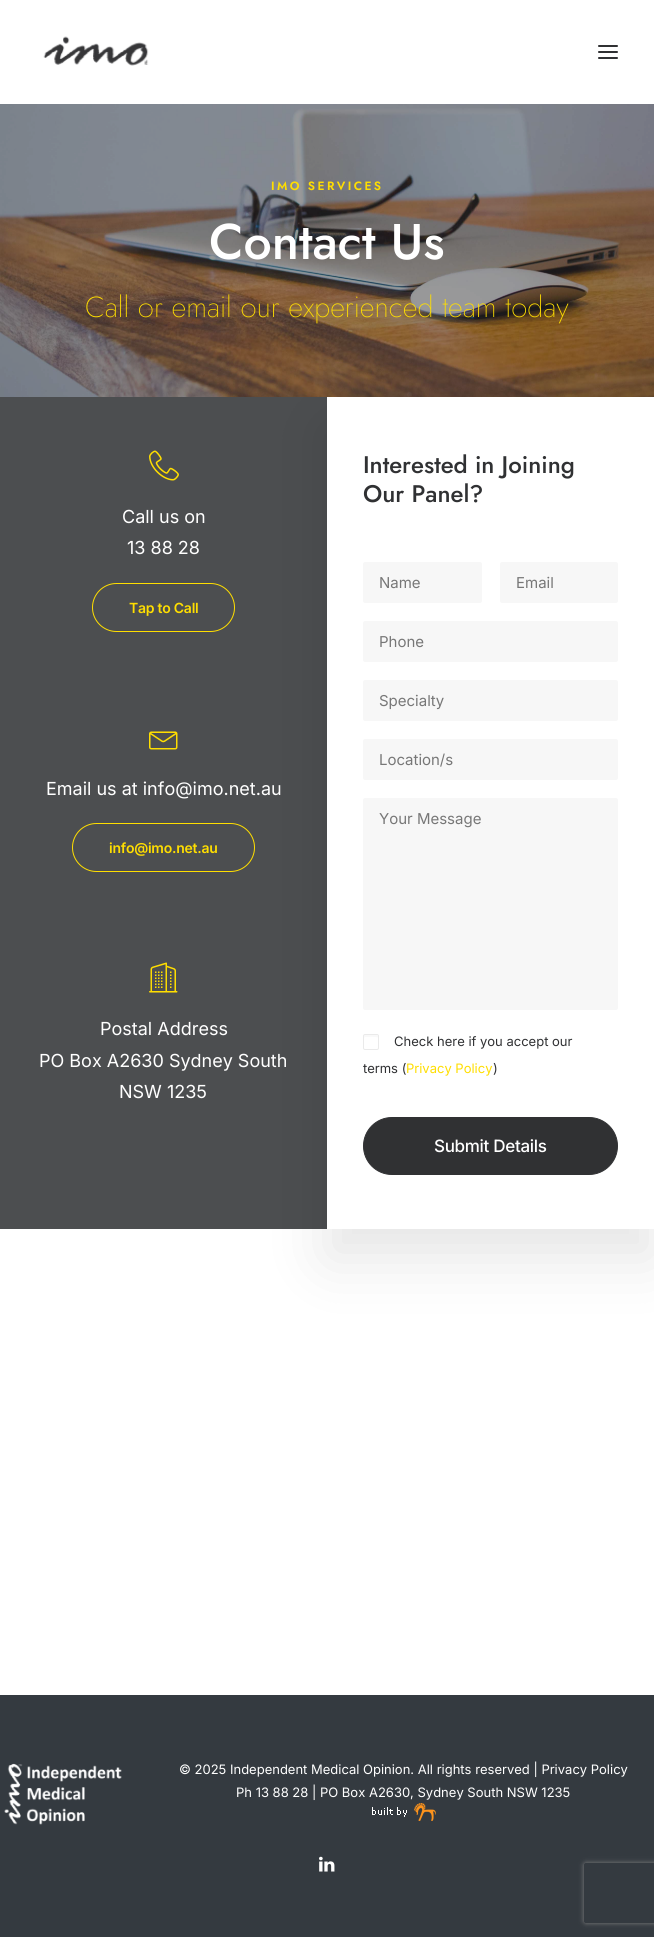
import math
import cairo

surface = cairo.ImageSurface(cairo.Format.RGB24, 654, 1937)
ctx = cairo.Context(surface)
options = cairo.FontOptions()
options.set_hint_metrics(cairo.HintMetrics.OFF)
options.set_hint_style(cairo.HintStyle.NONE)
ctx.set_font_options(options)
ctx.set_miter_limit(4)


def ink(r, g, b):
    ctx.set_source_rgb(r / 255, g / 255, b / 255)


def write(x, y, s, family, size, color, bold=False, italic=False):
    ctx.select_font_face(family, cairo.FontSlant.ITALIC if italic else cairo.FontSlant.NORMAL, cairo.FontWeight.BOLD if bold else cairo.FontWeight.NORMAL)
    ctx.set_font_size(size)
    ink(*color)
    ctx.move_to(x, y)
    ctx.show_text(s)


def write_spaced(x, y, s, letter, word):
    ctx.move_to(x, y)
    for ch in s:
        ctx.show_text(ch)
        ctx.rel_move_to(letter + word * (ch == ' '), 0)


def block(x, y, w, h, *color):
    ink(*color)
    ctx.rectangle(x, y, w, h)
    ctx.fill()


def round_path(x, y, w, h, r):
    ctx.new_sub_path()
    for i, (u, v) in enumerate([(x + w - r, y + h - r), (x + r, y + h - r), (x + r, y + r), (x + w - r, y + r)]):
        ctx.arc(u, v, r, i * math.pi / 2, (i + 1) * math.pi / 2)
    ctx.close_path()


def blur_box(x, y, w, h, r, blur, alpha):
    ctx.push_group_with_content(cairo.Content.ALPHA)
    ctx.set_operator(cairo.Operator.SOURCE)
    for i in range(15, -16, -2):
        e = blur * i / 6
        if min(w, h) + 2 * e > 0:
            ctx.set_source_rgba(0, 0, 0, alpha * math.erfc((i - 1) / 8.5) / 2)
            round_path(x - e, y - e, w + 2 * e, h + 2 * e, max(0, min(r + e + blur * .6, min(w, h) / 2 + e)))
            ctx.fill()
    ctx.mask(ctx.pop_group())


def paste(path, x, y, w, h):
    ctx.save()
    ctx.set_source_surface(cairo.ImageSurface.create_from_png(path), x, y)
    ctx.rectangle(x, y, w, h)
    ctx.fill()
    ctx.restore()


s1 = dict(family="Jost Medium", size=50, color=(255, 255, 255))
s2 = dict(family="Jost ExtraLight", size=29, color=(255, 222, 0))
s3 = dict(family="Inter", size=18, color=(255, 255, 255))
s4 = dict(family="Jost Medium", size=24, color=(48, 49, 51))
s5 = dict(family="Inter", size=15, color=(119, 119, 119))
s6 = dict(family="Inter", size=13, color=(48, 49, 51))
s7 = dict(family="Inter", size=13, color=(255, 222, 0))
s8 = dict(family="Inter", size=13, color=(255, 255, 255))

ink(255, 255, 255)
ctx.paint()
paste("pic1.png", 43, 36, 106, 30)
ink(48, 49, 51)
round_path(598, 51, 20, 2, 1)
ctx.fill()
round_path(598, 45, 20, 2, 1)
ctx.fill()
round_path(598, 57, 20, 2, 1)
ctx.fill()
paste("pic2.png", 0, 104, 654, 293)
ctx.select_font_face("Jost SemiBold")
ctx.set_font_size(12)
ink(255, 222, 0)
write_spaced(271, 190, "IMO SERVICES", 2.4, 0)
write(209, 259, "Contact Us", **s1)
write(85, 317, "Call or email our experienced team today", **s2)
block(0, 397, 327, 832, 76, 78, 80)
paste("pic3.png", 149, 450, 30, 31)
write(122, 523, "Call us on", **s3)
write(127, 554, "13 88 28", **s3)
round_path(92.5, 583.5, 142, 48, 24)
ink(255, 222, 0)
ctx.set_line_width(1)
ctx.stroke()
ctx.select_font_face("Inter SemiBold")
ctx.set_font_size(14)
write_spaced(129, 613, "Tap to Call", -0.25, 0)
paste("pic4.png", 149, 731, 29, 19)
write(46, 795, "Email us at info@imo.net.au", **s3)
round_path(72.5, 823.5, 182, 48, 24)
ink(255, 222, 0)
ctx.stroke()
ctx.select_font_face("Inter SemiBold")
ctx.set_font_size(14)
write_spaced(109, 853, "info@imo.net.au", -0.25, 0)
paste("pic5.png", 149, 962, 29, 31)
write(100, 1035, "Postal Address", **s3)
write(39, 1067, "PO Box A2630 Sydney South", **s3)
write(119, 1098, "NSW 1235", **s3)
ctx.save()
ctx.set_fill_rule(cairo.FillRule.EVEN_ODD)
ctx.new_path()
ctx.move_to(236, 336)
ctx.line_to(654, 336)
ctx.line_to(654, 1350)
ctx.line_to(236, 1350)
ctx.close_path()
ctx.move_to(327, 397)
ctx.line_to(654, 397)
ctx.line_to(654, 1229)
ctx.line_to(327, 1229)
ctx.close_path()
ctx.clip()
ink(0, 0, 0)
blur_box(327, 427, 327, 832, 0, 30, 0.1)
ctx.restore()
write(363, 473, "Interested in Joining", **s4)
write(363, 502, "Our Panel?", **s4)
ink(247, 247, 247)
round_path(363, 562, 119, 41, 2)
ctx.fill()
write(379, 588, "Name", **s5)
ink(247, 247, 247)
round_path(500, 562, 118, 41, 2)
ctx.fill()
write(516, 588, "Email", **s5)
ink(247, 247, 247)
round_path(363, 621, 255, 41, 2)
ctx.fill()
write(379, 647, "Phone", **s5)
ink(247, 247, 247)
round_path(363, 680, 255, 41, 2)
ctx.fill()
write(379, 706, "Specialty", **s5)
ink(247, 247, 247)
round_path(363, 739, 255, 41, 2)
ctx.fill()
write(379, 765, "Location/s", **s5)
ink(247, 247, 247)
round_path(363, 798, 255, 212, 2)
ctx.fill()
write(379, 824, "Your Message", **s5)
ink(249, 249, 249)
ctx.new_path()
ctx.move_to(365, 1037)
ctx.curve_to(367, 1037, 376.5, 1036.5, 378, 1037.5)
ctx.curve_to(378, 1035, 378, 1035, 375, 1035)
ctx.line_to(371, 1035)
ctx.curve_to(364, 1035, 364, 1033, 364, 1039)
ctx.curve_to(364, 1038, 364.5, 1037, 365, 1037)
ctx.close_path()
ctx.fill()
round_path(363.5, 1034.5, 15, 15, 1.5)
ink(234, 234, 234)
ctx.stroke()
write(394, 1046, "Check here if you accept our", **s6)
write(363, 1073, "terms (", **s6)
write(406, 1073, "Privacy Policy", **s7)
write(493, 1073, ")", **s6)
round_path(363.5, 1117.5, 254, 57, 28.5)
ctx.fill_preserve()
ctx.stroke()
ctx.select_font_face("Inter Medium")
ctx.set_font_size(17)
ink(255, 255, 255)
write_spaced(434, 1152, "Submit Details", -0.3, 0)
block(0, 1695, 654, 242, 52, 58, 64)
paste("pic6.png", 4, 1763, 118, 62)
write(179, 1774, "© 2025 Independent Medical Opinion. All rights reserved | Privacy Policy", **s8)
write(236, 1797, "Ph 13 88 28 | PO Box A2630, Sydney South NSW 1235", **s8)
paste("pic7.png", 372, 1803, 64, 18)
paste("pic8.png", 319, 1856, 16, 16)
ctx.save()
ctx.set_fill_rule(cairo.FillRule.EVEN_ODD)
ctx.new_path()
ctx.move_to(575, 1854)
ctx.line_to(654, 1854)
ctx.line_to(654, 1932)
ctx.line_to(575, 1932)
ctx.close_path()
ctx.move_to(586, 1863)
ctx.line_to(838, 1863)
ctx.curve_to(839, 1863, 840, 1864, 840, 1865)
ctx.line_to(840, 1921)
ctx.curve_to(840, 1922, 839, 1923, 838, 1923)
ctx.line_to(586, 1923)
ctx.curve_to(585, 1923, 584, 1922, 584, 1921)
ctx.line_to(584, 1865)
ctx.curve_to(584, 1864, 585, 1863, 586, 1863)
ctx.close_path()
ctx.clip()
ink(128, 128, 128)
blur_box(584, 1863, 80, 60, 2, 2.5, 1)
ctx.restore()
surface.write_to_png("screenshot.png")
